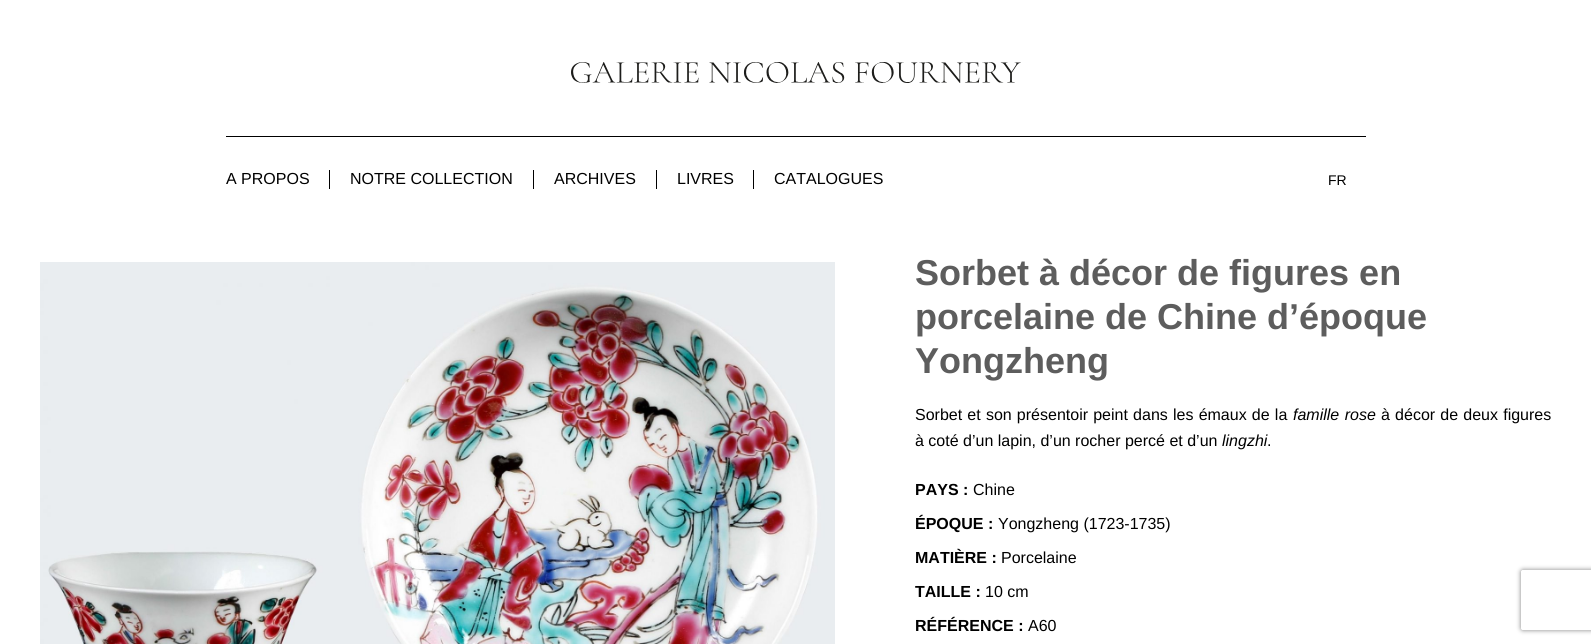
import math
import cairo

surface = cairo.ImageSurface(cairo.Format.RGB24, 1591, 644)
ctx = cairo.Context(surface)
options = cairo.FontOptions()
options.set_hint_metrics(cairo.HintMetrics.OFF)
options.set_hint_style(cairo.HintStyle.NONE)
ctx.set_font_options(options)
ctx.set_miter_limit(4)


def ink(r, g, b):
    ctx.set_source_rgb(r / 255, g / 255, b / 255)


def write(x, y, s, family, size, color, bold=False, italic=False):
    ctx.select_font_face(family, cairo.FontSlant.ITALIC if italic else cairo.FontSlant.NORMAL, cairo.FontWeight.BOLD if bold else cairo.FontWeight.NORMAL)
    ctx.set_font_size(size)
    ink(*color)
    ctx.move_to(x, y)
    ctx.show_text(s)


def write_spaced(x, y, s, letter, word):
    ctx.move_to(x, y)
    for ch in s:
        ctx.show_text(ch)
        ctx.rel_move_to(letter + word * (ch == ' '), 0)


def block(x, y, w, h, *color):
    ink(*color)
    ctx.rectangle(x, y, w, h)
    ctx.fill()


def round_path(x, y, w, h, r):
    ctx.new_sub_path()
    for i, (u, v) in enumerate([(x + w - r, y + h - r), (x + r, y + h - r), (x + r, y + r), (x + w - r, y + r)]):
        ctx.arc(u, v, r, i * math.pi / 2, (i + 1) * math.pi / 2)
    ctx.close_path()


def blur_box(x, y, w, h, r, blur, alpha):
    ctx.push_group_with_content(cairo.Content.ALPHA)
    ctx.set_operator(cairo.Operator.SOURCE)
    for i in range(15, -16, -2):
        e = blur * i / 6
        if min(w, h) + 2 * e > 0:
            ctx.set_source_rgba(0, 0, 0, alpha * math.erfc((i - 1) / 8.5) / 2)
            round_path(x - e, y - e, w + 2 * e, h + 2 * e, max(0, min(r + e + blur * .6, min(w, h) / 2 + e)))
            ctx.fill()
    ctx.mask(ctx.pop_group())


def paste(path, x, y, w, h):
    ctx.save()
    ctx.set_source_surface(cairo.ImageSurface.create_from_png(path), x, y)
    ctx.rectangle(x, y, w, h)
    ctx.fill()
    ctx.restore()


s1 = dict(family="Liberation Sans", size=16, color=(0, 0, 0))
s2 = dict(family="Liberation Sans", size=14, color=(0, 0, 0))
s3 = dict(family="Liberation Sans", size=36, color=(93, 93, 93), bold=True)
s4 = dict(family="Liberation Sans", size=16, color=(0, 0, 0), italic=True)
s5 = dict(family="Liberation Sans", size=16, color=(0, 0, 0), bold=True)

ink(255, 255, 255)
ctx.paint()
paste("pic1.png", 571, 62, 450, 21)
block(226, 136, 1140, 1, 0, 0, 0)
write(226, 184, "A PROPOS", **s1)
block(329, 170, 1, 19, 0, 0, 0)
write(350, 184, "NOTRE COLLECTION", **s1)
block(533, 170, 1, 19, 0, 0, 0)
write(554, 184, "ARCHIVES", **s1)
block(656, 170, 1, 19, 0, 0, 0)
write(677, 184, "LIVRES", **s1)
block(753, 170, 1, 19, 0, 0, 0)
write(774, 184, "CATALOGUES", **s1)
write(1328, 185, "FR", **s2)
paste("pic2.png", 40, 262, 795, 382)
write(915, 285, "Sorbet à décor de figures en", **s3)
write(915, 329, "porcelaine de Chine d’époque", **s3)
write(915, 373, "Yongzheng", **s3)
ctx.select_font_face("Liberation Sans")
ctx.set_font_size(16)
ink(0, 0, 0)
write_spaced(915, 420, "Sorbet et son présentoir peint dans les émaux de la", 0, 0.75)
ctx.select_font_face("Liberation Sans", cairo.FontSlant.ITALIC)
write_spaced(1293, 420, "famille rose", 0, 1)
ctx.select_font_face("Liberation Sans")
write_spaced(1381, 420, "à décor de deux figures", 0, 0.75)
write(915, 446, "à coté d’un lapin, d’un rocher percé et d’un", **s1)
write(1222, 446, "lingzhi", **s4)
write(1267, 446, ".", **s1)
write(915, 495, "PAYS :", **s5)
write(973, 495, "Chine", **s1)
write(915, 529, "ÉPOQUE :", **s5)
write(998, 529, "Yongzheng (1723-1735)", **s1)
write(915, 563, "MATIÈRE :", **s5)
write(1001, 563, "Porcelaine", **s1)
write(915, 597, "TAILLE :", **s5)
write(985, 597, "10 cm", **s1)
write(915, 631, "RÉFÉRENCE :", **s5)
write(1028, 631, "A60", **s1)
ctx.save()
ctx.set_fill_rule(cairo.FillRule.EVEN_ODD)
ctx.new_path()
ctx.move_to(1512, 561)
ctx.line_to(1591, 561)
ctx.line_to(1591, 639)
ctx.line_to(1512, 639)
ctx.close_path()
ctx.move_to(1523, 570)
ctx.line_to(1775, 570)
ctx.curve_to(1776, 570, 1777, 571, 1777, 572)
ctx.line_to(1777, 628)
ctx.curve_to(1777, 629, 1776, 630, 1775, 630)
ctx.line_to(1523, 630)
ctx.curve_to(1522, 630, 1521, 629, 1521, 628)
ctx.line_to(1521, 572)
ctx.curve_to(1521, 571, 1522, 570, 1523, 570)
ctx.close_path()
ctx.clip()
ink(128, 128, 128)
blur_box(1521, 570, 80, 60, 2, 2.5, 1)
ctx.restore()
surface.write_to_png("screenshot.png")
